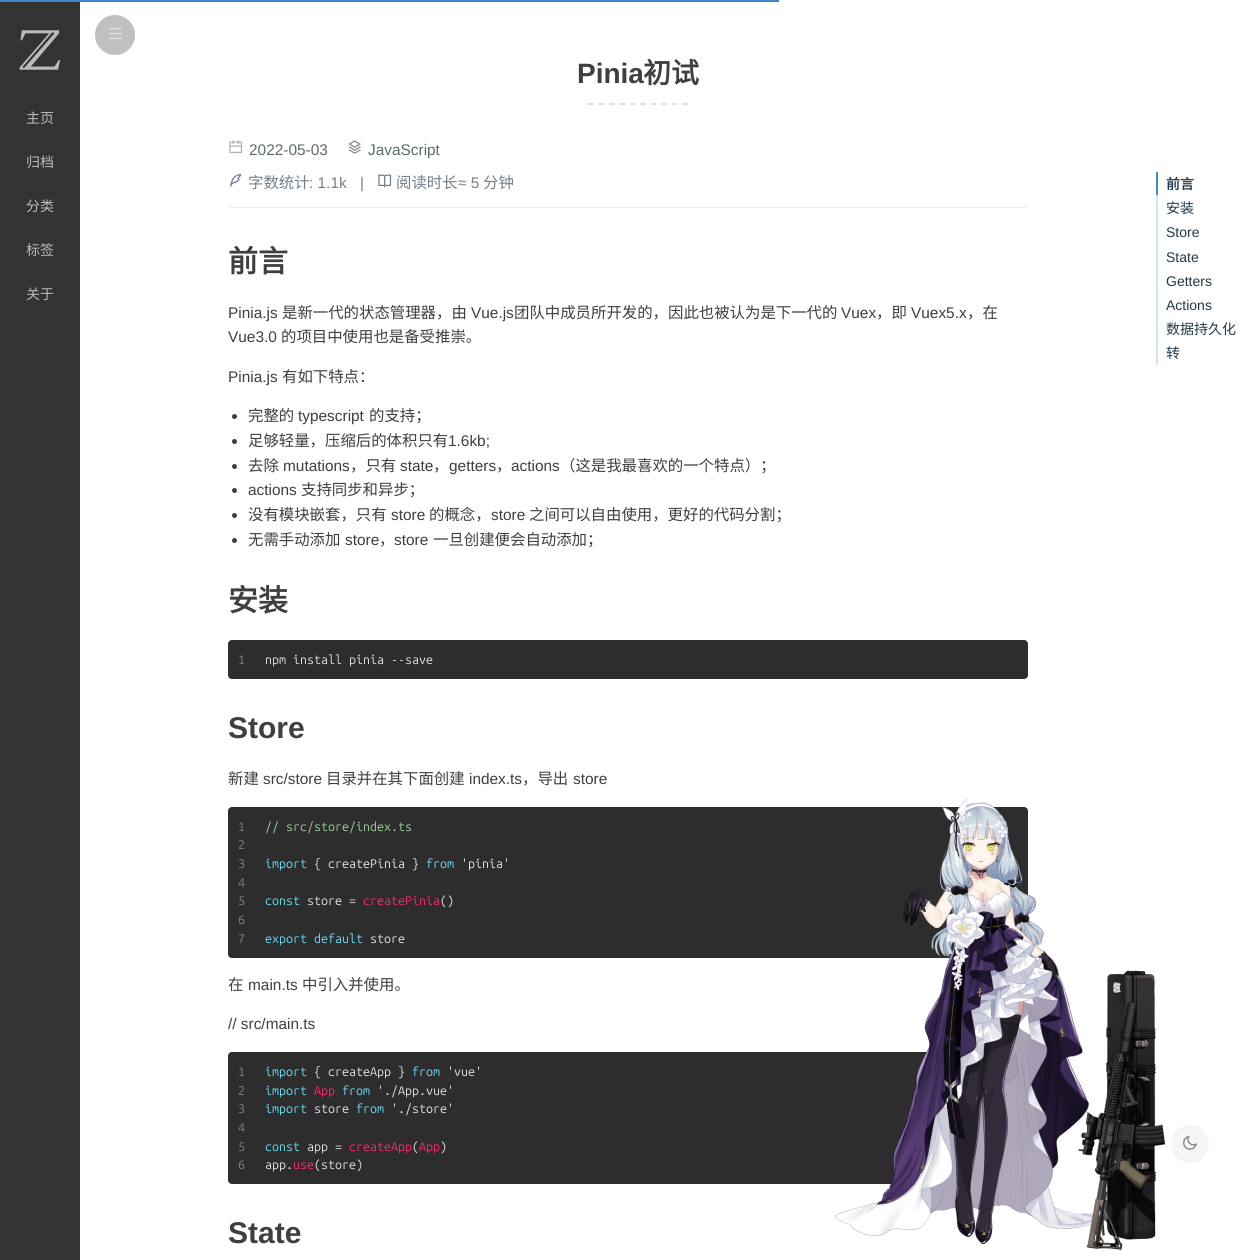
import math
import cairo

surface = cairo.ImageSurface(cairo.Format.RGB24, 1256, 1260)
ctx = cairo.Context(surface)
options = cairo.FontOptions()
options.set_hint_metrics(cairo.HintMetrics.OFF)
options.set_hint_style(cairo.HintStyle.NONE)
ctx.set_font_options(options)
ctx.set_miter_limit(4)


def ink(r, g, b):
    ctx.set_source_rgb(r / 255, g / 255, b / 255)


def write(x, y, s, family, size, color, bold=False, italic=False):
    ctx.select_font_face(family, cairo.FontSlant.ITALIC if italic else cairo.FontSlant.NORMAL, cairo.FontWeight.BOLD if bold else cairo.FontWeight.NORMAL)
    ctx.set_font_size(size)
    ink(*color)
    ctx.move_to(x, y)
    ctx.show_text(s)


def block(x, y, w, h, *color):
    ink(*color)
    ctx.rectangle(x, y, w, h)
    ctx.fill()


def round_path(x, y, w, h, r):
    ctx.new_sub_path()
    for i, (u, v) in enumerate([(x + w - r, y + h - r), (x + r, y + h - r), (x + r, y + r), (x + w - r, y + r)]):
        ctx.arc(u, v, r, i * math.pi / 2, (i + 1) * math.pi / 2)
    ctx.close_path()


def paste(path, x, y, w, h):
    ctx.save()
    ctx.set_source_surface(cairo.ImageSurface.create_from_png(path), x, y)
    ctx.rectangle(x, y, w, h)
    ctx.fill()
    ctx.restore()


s1 = dict(family="Noto Sans CJK SC", size=14, color=(187, 187, 187))
s2 = dict(family="Liberation Sans", size=28, color=(64, 62, 62), bold=True)
s3 = dict(family="Noto Sans CJK SC", size=28, color=(64, 62, 62), bold=True)
s4 = dict(family="Liberation Sans", size=15.4, color=(92, 107, 114))
s5 = dict(family="Noto Sans CJK SC", size=15.4, color=(113, 127, 140))
s6 = dict(family="Liberation Sans", size=15.4, color=(113, 127, 140))
s7 = dict(family="Noto Sans CJK SC", size=30, color=(64, 62, 62), bold=True)
s8 = dict(family="Liberation Sans", size=15.4, color=(64, 62, 62))
s9 = dict(family="Noto Sans CJK SC", size=15.4, color=(64, 62, 62))
s10 = dict(family="Ubuntu Mono", size=12.5, color=(128, 128, 128))
s11 = dict(family="Ubuntu Mono", size=12.5, color=(222, 222, 222))
s12 = dict(family="Liberation Sans", size=30, color=(64, 62, 62), bold=True)
s13 = dict(family="Ubuntu Mono", size=12.5, color=(153, 204, 153))
s14 = dict(family="Ubuntu Mono", size=12.5, color=(102, 217, 239))
s15 = dict(family="Ubuntu Mono", size=12.5, color=(249, 38, 114))
s16 = dict(family="Noto Sans CJK SC", size=14, color=(35, 56, 72), bold=True)
s17 = dict(family="Noto Sans CJK SC", size=14, color=(35, 56, 72))
s18 = dict(family="Liberation Sans", size=14, color=(35, 56, 72))

ink(255, 255, 255)
ctx.paint()
block(0, 0, 779, 2, 61, 133, 198)
block(0, 2, 80, 1258, 51, 51, 51)
ink(192, 192, 192)
ctx.arc(115, 35, 20, 0, 2 * math.pi)
ctx.fill()
paste("pic1.png", 109, 28, 13, 12)
paste("pic2.png", 19, 30, 42, 40)
write(26, 123, "主页", **s1)
write(26, 167, "归档", **s1)
write(26, 211, "分类", **s1)
write(26, 255, "标签", **s1)
write(26, 299, "关于", **s1)
write(577, 83, "Pinia", **s2)
write(643, 83, "初试", **s3)
ctx.new_path()
ctx.move_to(588, 104)
ctx.line_to(688, 104)
ink(204, 229, 255)
ctx.set_dash([6, 4.44])
ctx.stroke()
paste("pic3.png", 229, 140, 14, 14)
write(249, 155, "2022-05-03", **s4)
paste("pic4.png", 348, 140, 13, 14)
write(368, 155, "JavaScript", **s4)
block(228, 207, 800, 1, 239, 239, 239)
paste("pic5.png", 230, 173, 12, 14)
write(248, 188, "字数统计", **s5)
write(309, 188, ": 1.1k", **s6)
write(360, 188, "|", **s6)
paste("pic6.png", 378, 174, 14, 14)
write(396, 188, "阅读时长", **s5)
write(458, 188, "≈ 5", **s6)
write(483, 188, "分钟", **s5)
write(228, 272, "前言", **s7)
write(228, 318, "Pinia.js", **s8)
write(282, 318, "是新一代的状态管理器，由", **s9)
write(471, 318, "Vue.js", **s8)
write(514, 318, "团队中成员所开发的，因此也被认为是下一代的", **s9)
write(841, 318, "Vuex", **s8)
write(876, 318, "，即", **s9)
write(911, 318, "Vuex5.x", **s8)
write(967, 318, "，在", **s9)
write(228, 342, "Vue3.0", **s8)
write(281, 342, "的项目中使用也是备受推崇。", **s9)
write(228, 382, "Pinia.js", **s8)
write(282, 382, "有如下特点：", **s9)
ctx.new_path()
ctx.arc(234.5, 416.5, 2.5, 0, 2 * math.pi)
ctx.fill()
write(248, 421, "完整的", **s9)
write(298, 421, "typescript", **s8)
write(369, 421, "的支持；", **s9)
ctx.new_path()
ctx.arc(234.5, 441.5, 2.5, 0, 2 * math.pi)
ctx.fill()
write(248, 446, "足够轻量，压缩后的体积只有", **s9)
write(448, 446, "1.6kb;", **s8)
ctx.new_path()
ctx.arc(234.5, 466.5, 2.5, 0, 2 * math.pi)
ctx.fill()
write(248, 471, "去除", **s9)
write(283, 471, "mutations", **s8)
write(350, 471, "，只有", **s9)
write(400, 471, "state", **s8)
write(449, 471, "getters", **s8)
write(511, 471, "actions", **s8)
write(560, 471, "（这是我最喜欢的一个特点）；", **s9)
write(433, 471, "，", **s9)
write(496, 471, "，", **s9)
ctx.new_path()
ctx.arc(234.5, 490.5, 2.5, 0, 2 * math.pi)
ctx.fill()
write(248, 495, "actions", **s8)
write(301, 495, "支持同步和异步；", **s9)
ctx.new_path()
ctx.arc(234.5, 515.5, 2.5, 0, 2 * math.pi)
ctx.fill()
write(248, 520, "没有模块嵌套，只有", **s9)
write(391, 520, "store", **s8)
write(429, 520, "的概念，", **s9)
write(491, 520, "store", **s8)
write(529, 520, "之间可以自由使用，更好的代码分割；", **s9)
ctx.new_path()
ctx.arc(234.5, 540.5, 2.5, 0, 2 * math.pi)
ctx.fill()
write(248, 545, "无需手动添加", **s9)
write(345, 545, "store", **s8)
write(394, 545, "store", **s8)
write(433, 545, "一旦创建便会自动添加；", **s9)
write(379, 545, "，", **s9)
write(228, 611, "安装", **s7)
ink(45, 45, 45)
round_path(228, 640, 800, 39, 4)
ctx.fill()
write(238, 664, "1", **s10)
write(265, 664, "npm install pinia --save", **s11)
write(228, 738, "Store", **s12)
write(228, 784, "新建", **s9)
write(263, 784, "src/store", **s8)
write(326, 784, "目录并在其下面创建", **s9)
write(469, 784, "index.ts", **s8)
write(522, 784, "，导出", **s9)
write(573, 784, "store", **s8)
ink(45, 45, 45)
round_path(228, 807, 800, 151, 4)
ctx.fill()
write(238, 831, "1", **s10)
write(238, 849, "2", **s10)
write(238, 868, "3", **s10)
write(238, 887, "4", **s10)
write(238, 905, "5", **s10)
write(238, 924, "6", **s10)
write(238, 943, "7", **s10)
write(265, 831, "// src/store/index.ts", **s13)
write(265, 868, "import", **s14)
write(314, 868, "{ createPinia }", **s11)
write(426, 868, "from", **s14)
write(461, 868, "'pinia'", **s11)
write(265, 905, "const", **s14)
write(307, 905, "store =", **s11)
write(363, 905, "createPinia", **s15)
write(440, 905, "()", **s11)
write(265, 943, "export default", **s14)
write(370, 943, "store", **s11)
write(228, 990, "在", **s9)
write(248, 990, "main.ts", **s8)
write(302, 990, "中引入并使用。", **s9)
write(228, 1029, "// src/main.ts", **s8)
ink(45, 45, 45)
round_path(228, 1052, 800, 132, 4)
ctx.fill()
write(238, 1076, "1", **s10)
write(238, 1095, "2", **s10)
write(238, 1113, "3", **s10)
write(238, 1132, "4", **s10)
write(238, 1151, "5", **s10)
write(238, 1169, "6", **s10)
write(265, 1076, "import", **s14)
write(314, 1076, "{ createApp }", **s11)
write(412, 1076, "from", **s14)
write(447, 1076, "'vue'", **s11)
write(265, 1095, "import", **s14)
write(314, 1095, "App", **s15)
write(342, 1095, "from", **s14)
write(377, 1095, "'./App.vue'", **s11)
write(265, 1113, "import", **s14)
write(314, 1113, "store", **s11)
write(356, 1113, "from", **s14)
write(391, 1113, "'./store'", **s11)
write(265, 1151, "const", **s14)
write(349, 1151, "createApp App", **s15)
write(412, 1151, "(", **s11)
write(440, 1151, ")", **s11)
write(307, 1151, "app =", **s11)
write(265, 1169, "app.", **s11)
write(293, 1169, "use", **s15)
write(314, 1169, "(store)", **s11)
write(228, 1243, "State", **s12)
block(1156, 172, 2, 23, 71, 139, 201)
write(1166, 189, "前言", **s16)
block(1156, 195, 2, 170, 207, 230, 255)
write(1166, 213, "安装", **s17)
write(1166, 237, "Store", **s18)
write(1166, 262, "State", **s18)
write(1166, 286, "Getters", **s18)
write(1166, 310, "Actions", **s18)
write(1166, 334, "数据持久化", **s17)
write(1166, 358, "转", **s17)
ink(245, 245, 245)
ctx.new_path()
ctx.arc(1190, 1144, 19, 0, 2 * math.pi)
ctx.fill()
paste("pic7.png", 1183, 1135, 14, 15)
paste("pic8.png", 834, 797, 332, 453)
surface.write_to_png("screenshot.png")
